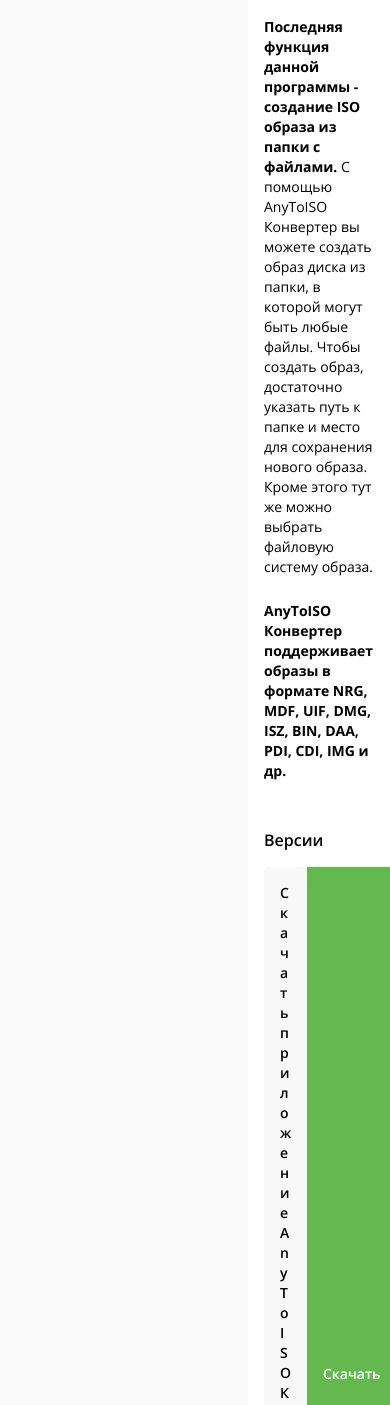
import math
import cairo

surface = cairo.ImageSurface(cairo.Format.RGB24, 390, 1405)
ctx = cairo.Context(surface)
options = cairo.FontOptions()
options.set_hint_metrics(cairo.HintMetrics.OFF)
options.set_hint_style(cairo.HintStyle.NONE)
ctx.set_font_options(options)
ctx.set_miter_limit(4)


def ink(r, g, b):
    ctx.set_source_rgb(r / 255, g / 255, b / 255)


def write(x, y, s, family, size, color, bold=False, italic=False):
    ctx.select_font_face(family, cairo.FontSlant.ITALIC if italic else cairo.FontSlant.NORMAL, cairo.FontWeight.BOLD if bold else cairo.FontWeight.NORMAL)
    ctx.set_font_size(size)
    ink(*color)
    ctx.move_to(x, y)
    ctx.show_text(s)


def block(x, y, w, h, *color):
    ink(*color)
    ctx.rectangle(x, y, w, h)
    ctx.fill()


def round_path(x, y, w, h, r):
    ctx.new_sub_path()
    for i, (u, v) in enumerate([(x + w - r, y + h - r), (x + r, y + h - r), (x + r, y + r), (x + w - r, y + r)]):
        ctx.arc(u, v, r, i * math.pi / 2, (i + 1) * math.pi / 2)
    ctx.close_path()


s1 = dict(family="Open Sans", size=14, color=(0, 0, 0), bold=True)
s2 = dict(family="Open Sans", size=14, color=(0, 0, 0))
s3 = dict(family="Open Sans SemiBold", size=16, color=(0, 0, 0))
s4 = dict(family="Open Sans SemiBold", size=14, color=(0, 0, 0))
s5 = dict(family="Open Sans SemiBold", size=14, color=(255, 255, 255))

ink(250, 250, 250)
ctx.paint()
block(248, 0, 142, 1405, 255, 255, 255)
write(264, 32, "Последняя", **s1)
write(264, 52, "функция", **s1)
write(264, 72, "данной", **s1)
write(264, 92, "программы -", **s1)
write(264, 112, "создание ISO", **s1)
write(264, 132, "образа из", **s1)
write(264, 152, "папки с", **s1)
write(264, 172, "файлами.", **s1)
write(341, 172, "С", **s2)
write(264, 192, "помощью", **s2)
write(264, 212, "AnyToISO", **s2)
write(264, 232, "Конвертер вы", **s2)
write(264, 252, "можете создать", **s2)
write(264, 272, "образ диска из", **s2)
write(264, 292, "папки, в", **s2)
write(264, 312, "которой могут", **s2)
write(264, 332, "быть любые", **s2)
write(264, 352, "файлы. Чтобы", **s2)
write(264, 372, "создать образ,", **s2)
write(264, 392, "достаточно", **s2)
write(264, 412, "указать путь к", **s2)
write(264, 432, "папке и место", **s2)
write(264, 452, "для сохранения", **s2)
write(264, 472, "нового образа.", **s2)
write(264, 492, "Кроме этого тут", **s2)
write(264, 512, "же можно", **s2)
write(264, 532, "выбрать", **s2)
write(264, 552, "файловую", **s2)
write(264, 572, "систему образа.", **s2)
write(264, 616, "AnyToISO", **s1)
write(264, 636, "Конвертер", **s1)
write(264, 656, "поддерживает", **s1)
write(264, 676, "образы в", **s1)
write(264, 696, "формате NRG,", **s1)
write(264, 716, "MDF, UIF, DMG,", **s1)
write(264, 736, "ISZ, BIN, DAA,", **s1)
write(264, 756, "PDI, CDI, IMG и", **s1)
write(264, 776, "др.", **s1)
write(264, 846, "Версии", **s3)
ink(248, 248, 248)
round_path(264, 867, 110, 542, 4)
ctx.fill()
write(280, 898, "С", **s4)
write(280, 918, "к", **s4)
write(280, 938, "а", **s4)
write(280, 958, "ч", **s4)
write(280, 978, "а", **s4)
write(280, 998, "т", **s4)
write(280, 1018, "ь", **s4)
write(280, 1038, "п", **s4)
write(280, 1058, "р", **s4)
write(280, 1078, "и", **s4)
write(280, 1098, "л", **s4)
write(280, 1118, "о", **s4)
write(280, 1138, "ж", **s4)
write(280, 1158, "е", **s4)
write(280, 1178, "н", **s4)
write(280, 1198, "и", **s4)
write(280, 1218, "е", **s4)
write(280, 1238, "A", **s4)
write(280, 1258, "n", **s4)
write(280, 1278, "y", **s4)
write(280, 1298, "T", **s4)
write(280, 1318, "o", **s4)
write(280, 1338, "I", **s4)
write(280, 1358, "S", **s4)
write(280, 1378, "O", **s4)
write(280, 1398, "К", **s4)
block(307, 867, 83, 538, 99, 185, 77)
write(323, 1379, "Скачать", **s5)
surface.write_to_png("screenshot.png")
